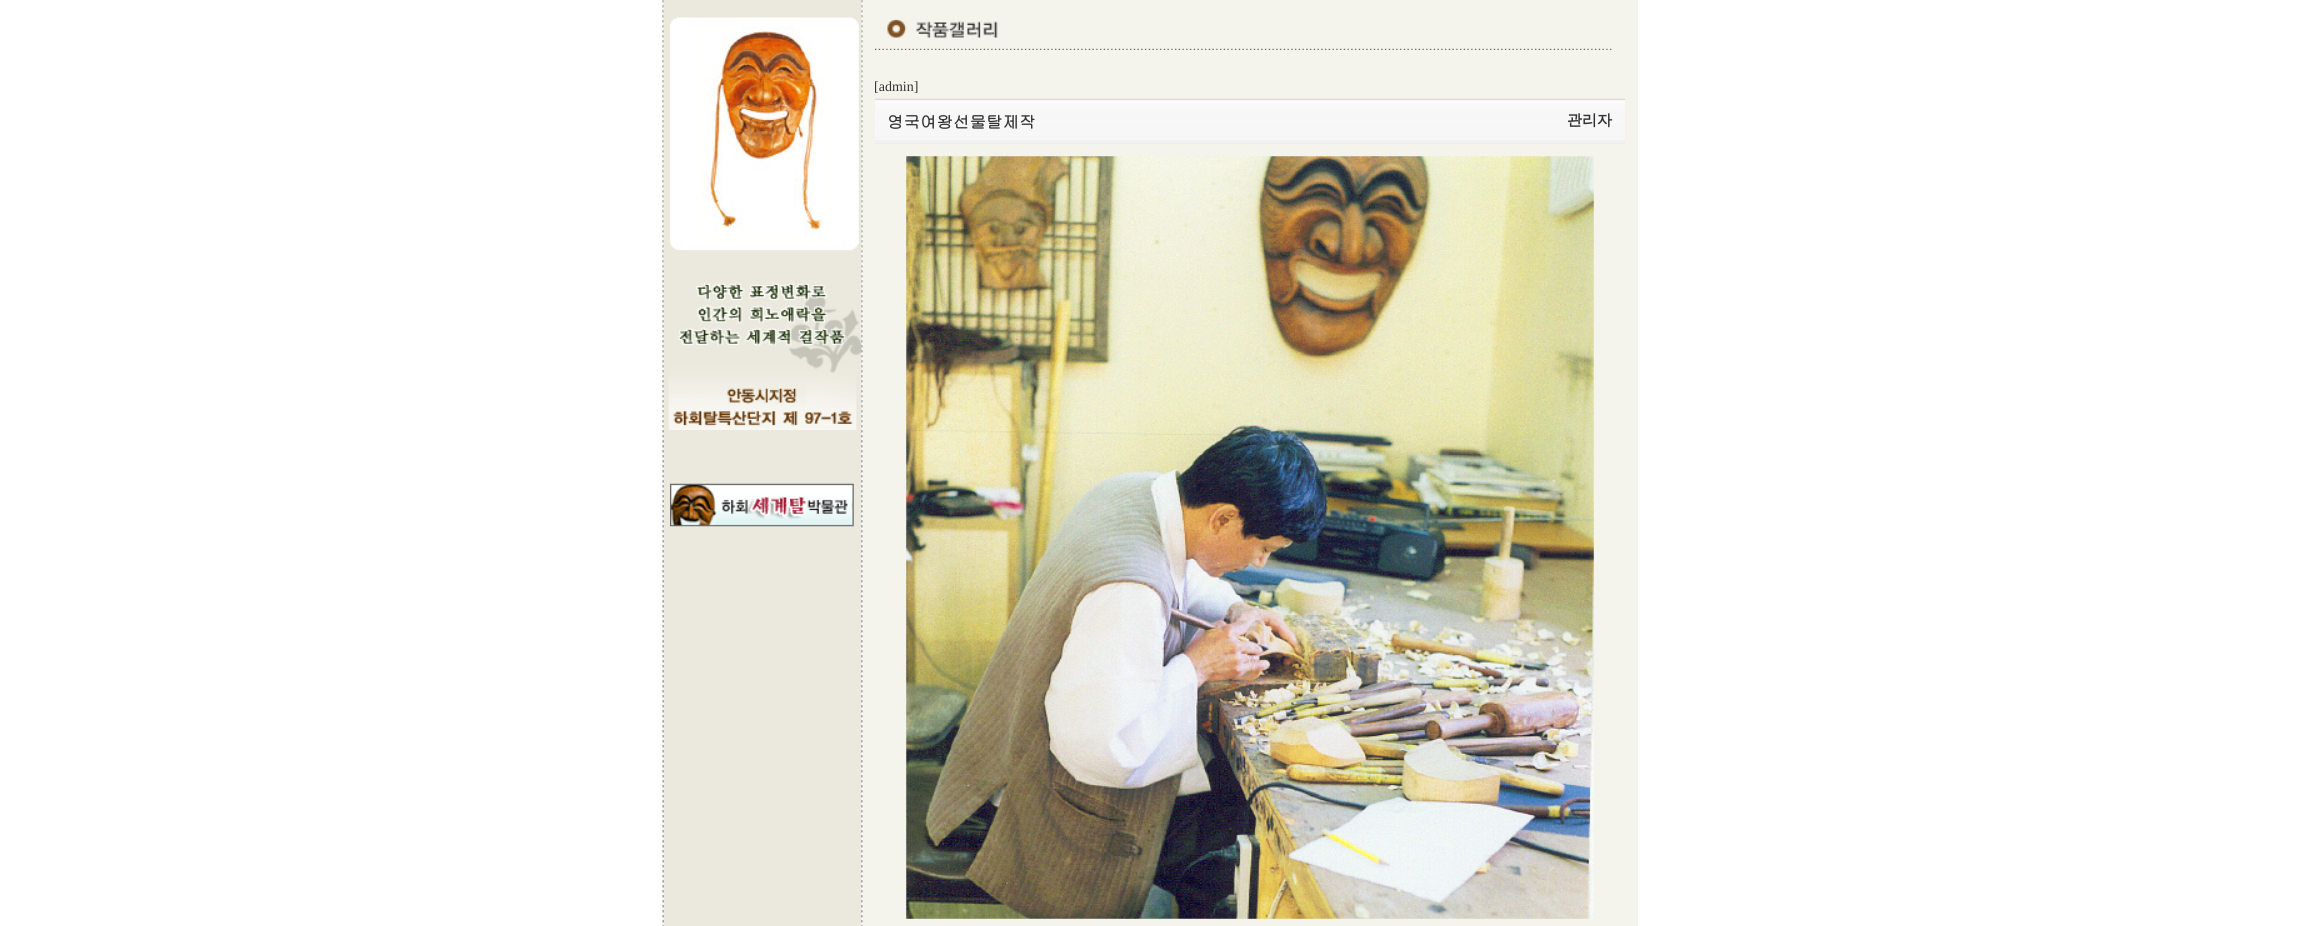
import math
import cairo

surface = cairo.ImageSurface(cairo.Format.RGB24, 2298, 926)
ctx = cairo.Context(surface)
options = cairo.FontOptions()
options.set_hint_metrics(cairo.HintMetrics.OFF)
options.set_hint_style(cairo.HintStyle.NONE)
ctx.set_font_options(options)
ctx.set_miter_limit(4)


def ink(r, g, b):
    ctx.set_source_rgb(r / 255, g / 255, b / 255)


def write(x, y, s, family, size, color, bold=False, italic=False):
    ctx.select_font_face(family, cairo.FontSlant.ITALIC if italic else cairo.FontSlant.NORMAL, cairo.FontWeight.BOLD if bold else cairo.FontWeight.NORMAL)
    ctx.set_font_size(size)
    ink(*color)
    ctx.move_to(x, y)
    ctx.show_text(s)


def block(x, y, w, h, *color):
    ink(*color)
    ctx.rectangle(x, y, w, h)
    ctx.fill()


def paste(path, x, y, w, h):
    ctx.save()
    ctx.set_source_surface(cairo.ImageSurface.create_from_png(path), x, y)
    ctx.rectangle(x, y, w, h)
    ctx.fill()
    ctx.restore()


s1 = dict(family="Liberation Serif", size=14, color=(51, 51, 51))
s2 = dict(family="Gulim", size=16.5, color=(51, 51, 51), bold=True)
s3 = dict(family="WenQuanYi Zen Hei", size=15, color=(51, 51, 51), bold=True)

ink(255, 255, 255)
ctx.paint()
paste("pic1.png", 662, 0, 201, 926)
paste("pic2.png", 663, 0, 199, 267)
paste("pic3.png", 663, 0, 199, 267)
paste("pic4.png", 663, 266, 199, 164)
paste("pic5.png", 670, 483, 184, 44)
block(863, 0, 775, 926, 244, 243, 236)
paste("pic6.png", 875, 19, 737, 31)
write(874, 91, "[admin]", **s1)
block(875, 140, 750, 3, 241, 241, 241)
paste("pic7.png", 875, 98, 750, 42)
block(875, 143, 750, 1, 238, 238, 238)
write(887, 128, "영국여왕선물탈제작", **s2)
write(1567, 125, "관리자", **s3)
paste("pic8.png", 906, 156, 688, 763)
surface.write_to_png("screenshot.png")
